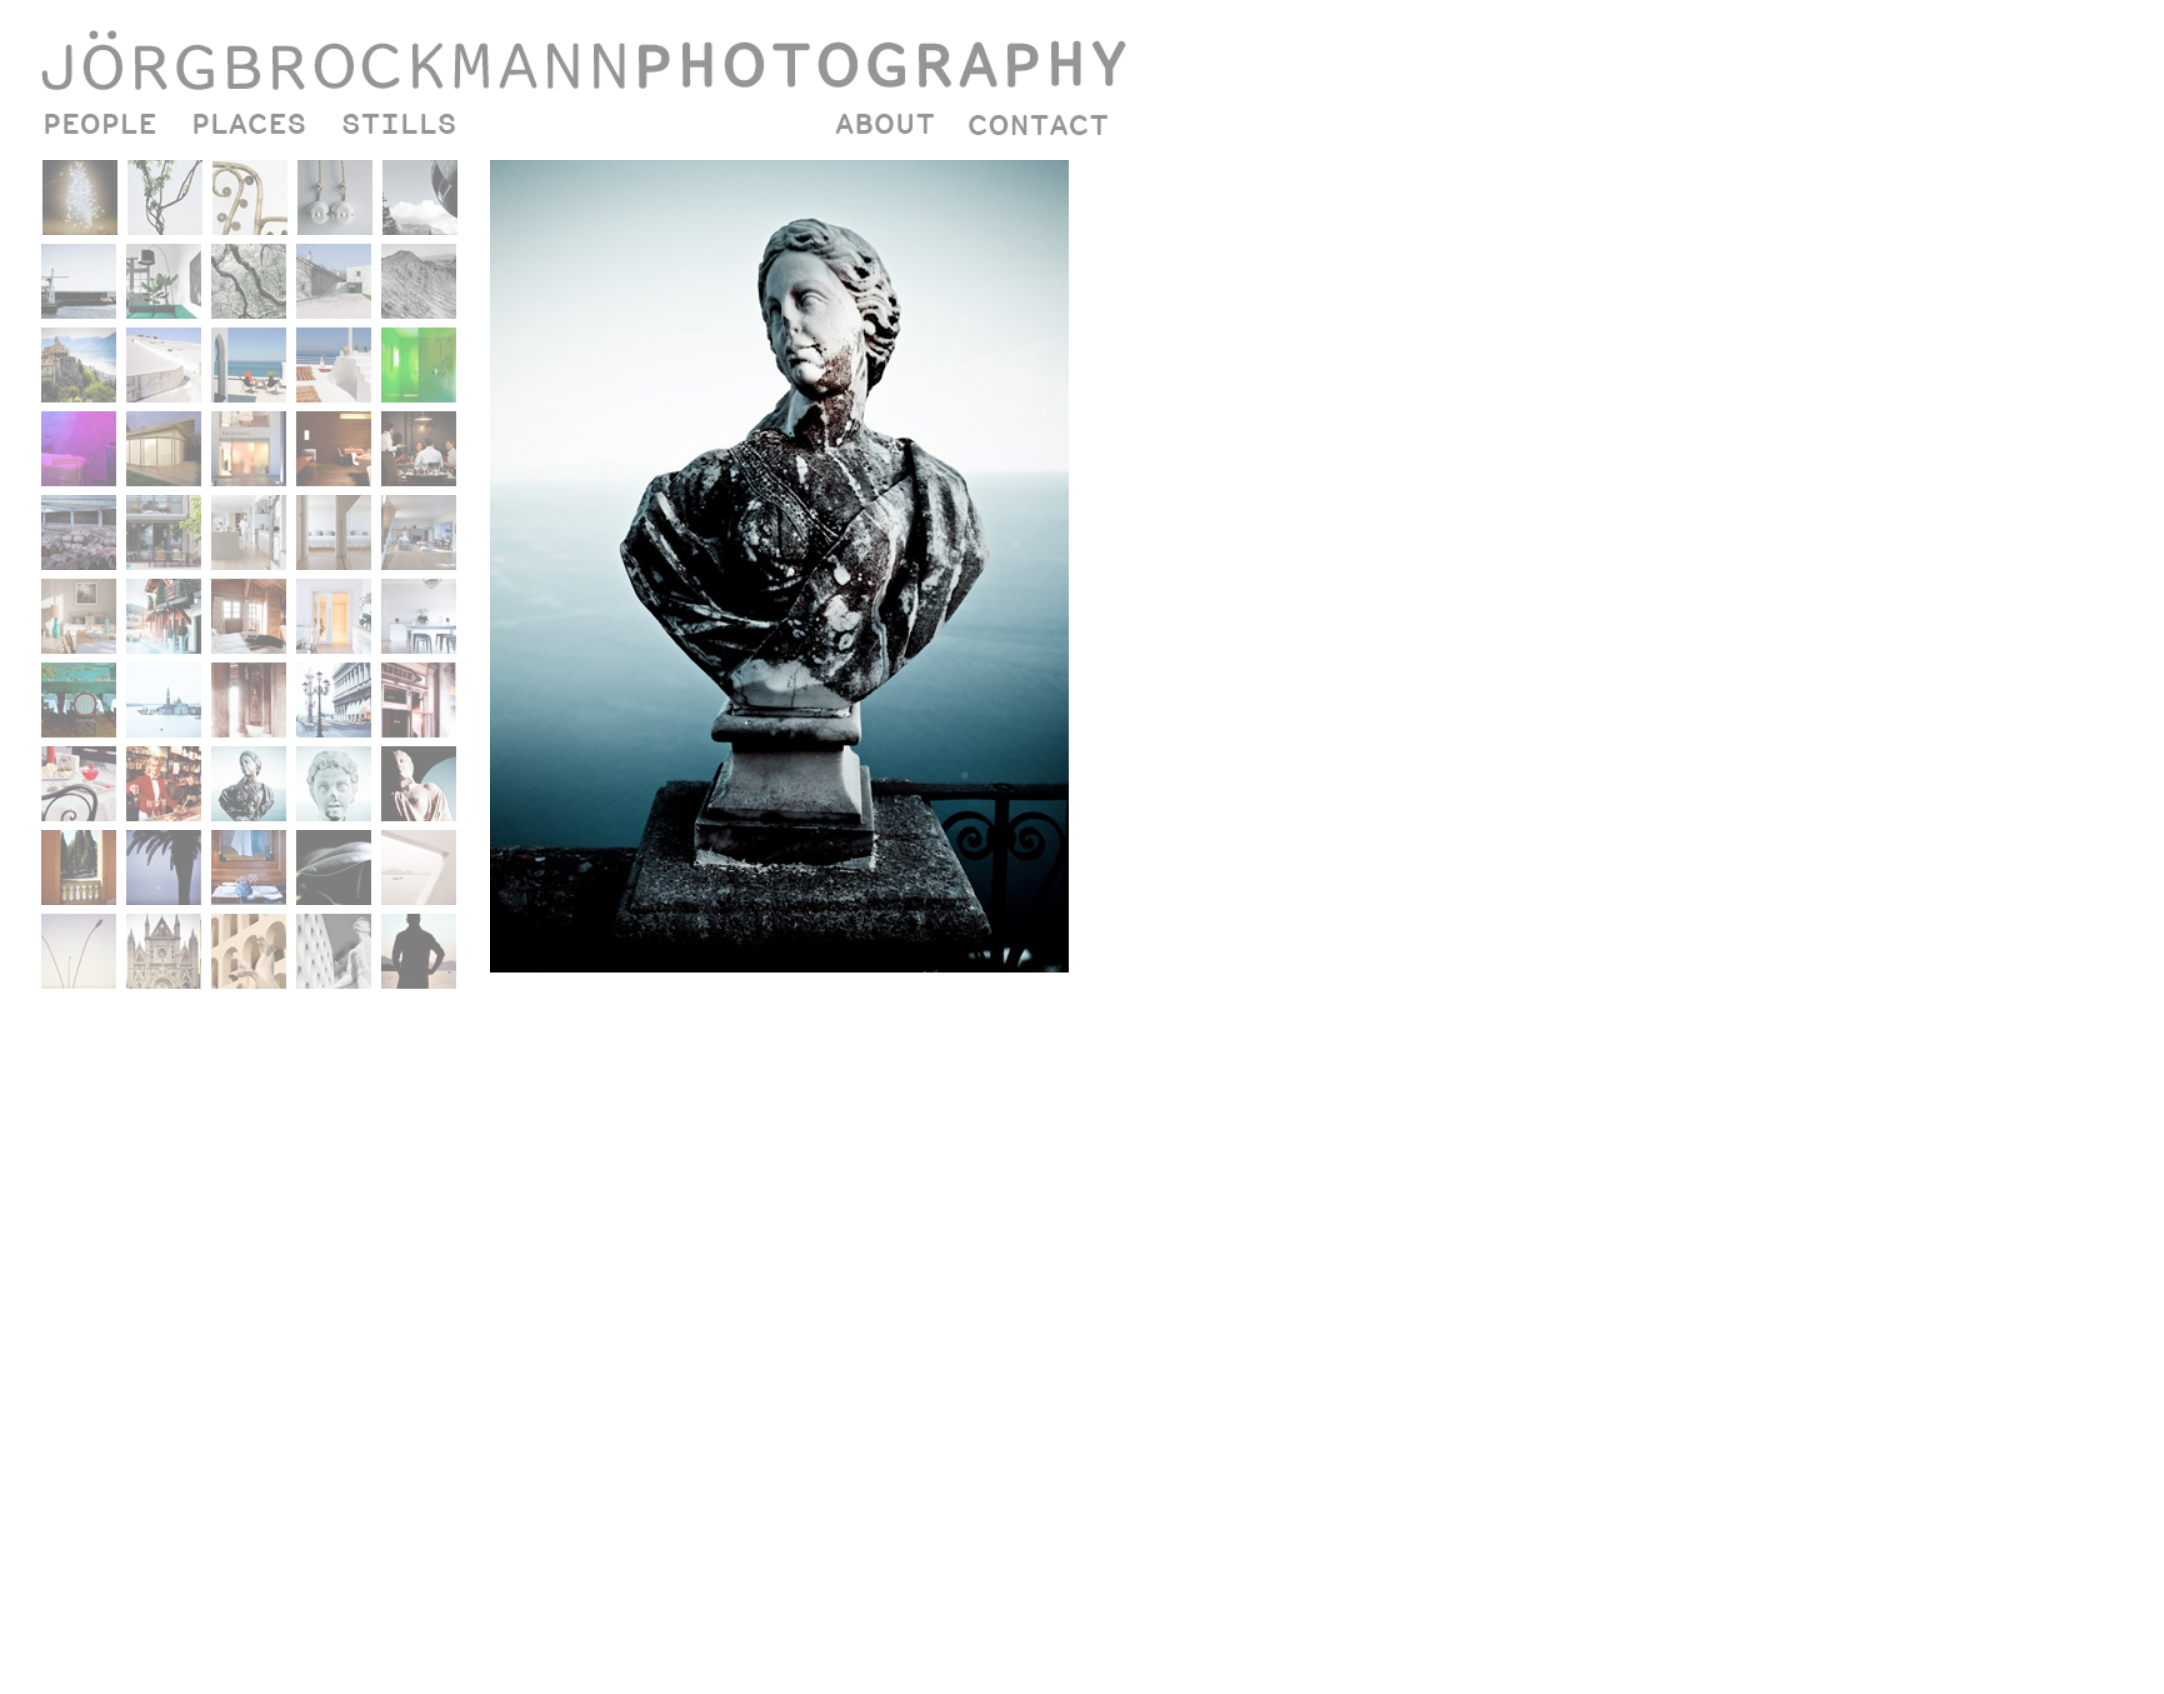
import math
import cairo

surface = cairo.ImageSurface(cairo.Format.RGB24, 2164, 1694)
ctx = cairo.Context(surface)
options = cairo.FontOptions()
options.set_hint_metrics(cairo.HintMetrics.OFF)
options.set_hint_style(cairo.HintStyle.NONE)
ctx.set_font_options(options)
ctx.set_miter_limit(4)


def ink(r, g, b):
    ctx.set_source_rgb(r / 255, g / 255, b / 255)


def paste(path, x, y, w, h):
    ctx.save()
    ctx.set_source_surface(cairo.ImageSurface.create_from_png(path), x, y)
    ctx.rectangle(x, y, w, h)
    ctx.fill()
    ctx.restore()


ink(255, 255, 255)
ctx.paint()
paste("pic1.png", 41, 30, 1086, 61)
paste("pic2.png", 45, 113, 111, 21)
paste("pic3.png", 193, 113, 113, 21)
paste("pic4.png", 342, 113, 114, 21)
paste("pic5.png", 835, 113, 99, 21)
paste("pic6.png", 968, 114, 140, 22)
paste("pic7.png", 42, 160, 76, 75)
paste("pic8.png", 127, 160, 76, 75)
paste("pic9.png", 212, 160, 76, 75)
paste("pic10.png", 297, 160, 76, 75)
paste("pic11.png", 382, 160, 76, 75)
paste("pic12.png", 41, 243, 76, 76)
paste("pic13.png", 126, 243, 76, 76)
paste("pic14.png", 211, 243, 76, 76)
paste("pic15.png", 296, 243, 76, 76)
paste("pic16.png", 381, 243, 76, 76)
paste("pic17.png", 41, 327, 76, 76)
paste("pic18.png", 126, 327, 76, 76)
paste("pic19.png", 211, 327, 76, 76)
paste("pic20.png", 296, 327, 76, 76)
paste("pic21.png", 381, 327, 76, 76)
paste("pic22.png", 41, 411, 76, 76)
paste("pic23.png", 126, 411, 76, 76)
paste("pic24.png", 211, 411, 76, 76)
paste("pic25.png", 296, 411, 76, 76)
paste("pic26.png", 381, 411, 76, 76)
paste("pic27.png", 41, 495, 76, 75)
paste("pic28.png", 126, 495, 76, 75)
paste("pic29.png", 211, 495, 76, 75)
paste("pic30.png", 296, 495, 76, 75)
paste("pic31.png", 381, 495, 76, 75)
paste("pic32.png", 41, 578, 76, 76)
paste("pic33.png", 126, 578, 76, 76)
paste("pic34.png", 211, 578, 76, 76)
paste("pic35.png", 296, 578, 76, 76)
paste("pic36.png", 381, 578, 76, 76)
paste("pic37.png", 41, 662, 76, 76)
paste("pic38.png", 126, 662, 76, 76)
paste("pic39.png", 211, 662, 76, 76)
paste("pic40.png", 296, 662, 76, 76)
paste("pic41.png", 381, 662, 76, 76)
paste("pic42.png", 41, 746, 76, 76)
paste("pic43.png", 126, 746, 76, 76)
paste("pic44.png", 211, 746, 76, 76)
paste("pic45.png", 296, 746, 76, 76)
paste("pic46.png", 381, 746, 76, 76)
paste("pic47.png", 41, 830, 76, 75)
paste("pic48.png", 126, 830, 76, 75)
paste("pic49.png", 211, 830, 76, 75)
paste("pic50.png", 296, 830, 76, 75)
paste("pic51.png", 381, 830, 76, 75)
paste("pic52.png", 41, 913, 76, 76)
paste("pic53.png", 126, 913, 76, 76)
paste("pic54.png", 211, 913, 76, 76)
paste("pic55.png", 296, 913, 76, 76)
paste("pic56.png", 381, 913, 76, 76)
paste("pic57.png", 490, 160, 579, 813)
surface.write_to_png("screenshot.png")
